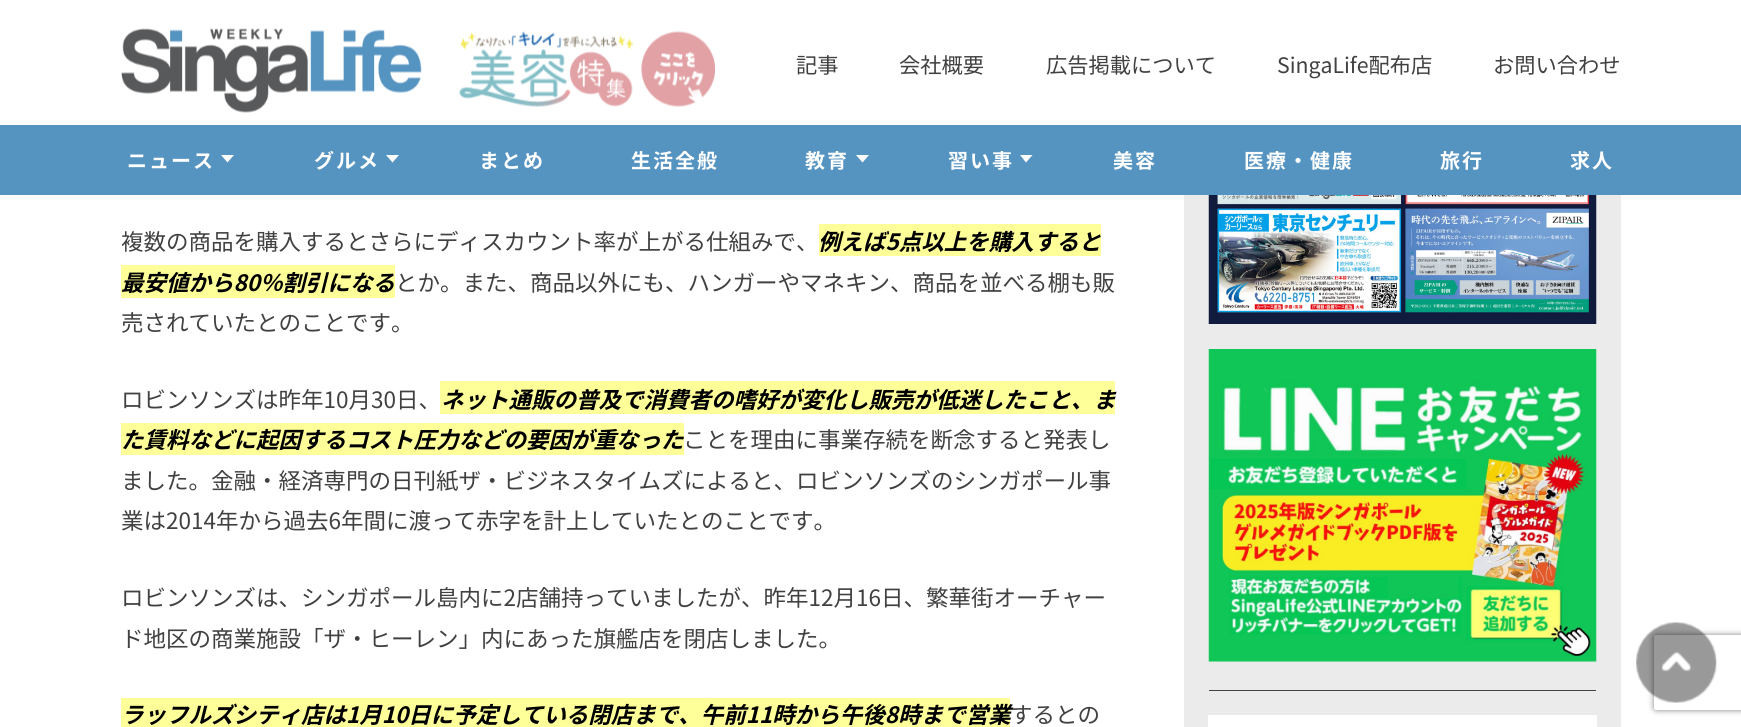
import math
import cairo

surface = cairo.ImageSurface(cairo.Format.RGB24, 1741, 727)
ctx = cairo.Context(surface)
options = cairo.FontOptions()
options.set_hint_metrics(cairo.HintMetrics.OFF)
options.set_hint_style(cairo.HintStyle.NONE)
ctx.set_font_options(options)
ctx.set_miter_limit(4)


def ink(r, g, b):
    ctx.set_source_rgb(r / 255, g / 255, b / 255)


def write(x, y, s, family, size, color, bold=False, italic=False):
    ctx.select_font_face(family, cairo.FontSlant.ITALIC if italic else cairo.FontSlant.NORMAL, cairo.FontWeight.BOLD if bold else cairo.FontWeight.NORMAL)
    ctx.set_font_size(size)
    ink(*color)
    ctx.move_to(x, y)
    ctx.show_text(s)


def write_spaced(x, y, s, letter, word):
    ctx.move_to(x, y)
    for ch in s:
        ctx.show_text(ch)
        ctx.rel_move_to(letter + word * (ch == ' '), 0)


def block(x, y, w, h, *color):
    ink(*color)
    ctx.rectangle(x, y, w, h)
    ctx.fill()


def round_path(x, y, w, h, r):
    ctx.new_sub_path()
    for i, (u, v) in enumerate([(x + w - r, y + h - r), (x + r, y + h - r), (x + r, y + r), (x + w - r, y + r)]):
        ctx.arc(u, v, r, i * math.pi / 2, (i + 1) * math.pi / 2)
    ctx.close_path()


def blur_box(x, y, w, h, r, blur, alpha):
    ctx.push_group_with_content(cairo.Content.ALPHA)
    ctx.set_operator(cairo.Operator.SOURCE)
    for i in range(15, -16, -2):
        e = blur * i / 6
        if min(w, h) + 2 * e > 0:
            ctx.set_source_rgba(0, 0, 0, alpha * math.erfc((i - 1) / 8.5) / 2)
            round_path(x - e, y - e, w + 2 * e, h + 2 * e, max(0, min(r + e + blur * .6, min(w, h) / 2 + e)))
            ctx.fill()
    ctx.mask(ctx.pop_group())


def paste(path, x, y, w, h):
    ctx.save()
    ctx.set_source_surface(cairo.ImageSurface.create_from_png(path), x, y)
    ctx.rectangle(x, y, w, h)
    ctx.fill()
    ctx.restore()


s1 = dict(family="Noto Sans JP", size=21.25, color=(65, 65, 65))
s2 = dict(family="Noto Sans JP", size=22.5, color=(65, 65, 65))
s3 = dict(family="Noto Sans JP", size=22.5, color=(0, 0, 0), bold=True, italic=True)

ink(255, 255, 255)
ctx.paint()
paste("pic1.png", 121, 28, 301, 85)
paste("pic2.png", 459, 30, 256, 77)
write(796, 73, "記事", **s1)
write(899, 73, "会社概要", **s1)
write(1046, 73, "広告掲載について", **s1)
write(1277, 73, "SingaLife配布店", **s1)
write(1493, 73, "お問い合わせ", **s1)
block(0, 125, 1741, 70, 85, 147, 193)
ctx.select_font_face("Noto Sans JP", cairo.FontSlant.NORMAL, cairo.FontWeight.BOLD)
ctx.set_font_size(20)
ink(255, 255, 255)
write_spaced(127, 168, "ニュース", 2, 0)
ctx.new_path()
ctx.move_to(221, 155)
ctx.line_to(234, 155)
ctx.line_to(227.5, 162.5)
ctx.close_path()
ctx.fill()
write_spaced(314, 168, "グルメ", 2, 0)
ctx.new_path()
ctx.move_to(386, 155)
ctx.line_to(399, 155)
ctx.line_to(392.5, 162.5)
ctx.close_path()
ctx.fill()
write_spaced(479, 168, "まとめ", 2, 0)
write_spaced(631, 168, "生活全般", 2, 0)
write_spaced(805, 168, "教育", 2, 0)
ctx.new_path()
ctx.move_to(856, 155)
ctx.line_to(869, 155)
ctx.line_to(862.5, 162.5)
ctx.close_path()
ctx.fill()
write_spaced(948, 168, "習い事", 2, 0)
ctx.new_path()
ctx.move_to(1020, 155)
ctx.line_to(1032.5, 155)
ctx.line_to(1026, 162.5)
ctx.close_path()
ctx.fill()
write_spaced(1113, 168, "美容", 2, 0)
write_spaced(1244, 168, "医療・健康", 2, 0)
write_spaced(1440, 168, "旅行", 2, 0)
write_spaced(1570, 168, "求人", 2, 0)
write(121, 250, "複数の商品を購入するとさらにディスカウント率が上がる仕組みで、", **s2)
block(819, 224, 282, 32, 255, 255, 153)
write(818, 250, "例えば5点以上を購入すると", **s3)
block(121, 265, 274, 33, 255, 255, 153)
write(121, 291, "最安値から80％割引になる", **s3)
write(395, 291, "とか。また、商品以外にも、ハンガーやマネキン、商品を並べる棚も販", **s2)
write(121, 331, "売されていたとのことです。", **s2)
write(121, 408, "ロビンソンズは昨年10月30日、", **s2)
block(440, 381, 675, 33, 255, 255, 153)
write(441, 408, "ネット通販の普及で消費者の嗜好が変化し販売が低迷したこと、ま", **s3)
block(121, 423, 563, 32, 255, 255, 153)
write(121, 448, "た賃料などに起因するコスト圧力などの要因が重なった", **s3)
write(683, 448, "ことを理由に事業存続を断念すると発表し", **s2)
write(121, 489, "ました。金融・経済専門の日刊紙ザ・ビジネスタイムズによると、ロビンソンズのシンガポール事", **s2)
write(121, 529, "業は2014年から過去6年間に渡って赤字を計上していたとのことです。", **s2)
write(121, 606, "ロビンソンズは、シンガポール島内に2店舗持っていましたが、昨年12月16日、繁華街オーチャー", **s2)
write(121, 647, "ド地区の商業施設「ザ・ヒーレン」内にあった旗艦店を閉店しました。", **s2)
block(121, 698, 889, 29, 255, 255, 153)
write(121, 723, "ラッフルズシティ店は1月10日に予定している閉店まで、午前11時から午後8時まで営業", **s3)
write(1010, 723, "するとの", **s2)
block(1184, 195, 437, 532, 235, 235, 235)
paste("pic3.png", 1208, 195, 389, 129)
paste("pic4.png", 1208, 349, 389, 313)
block(1209, 690, 387, 1, 65, 65, 65)
block(1208, 715, 389, 12, 255, 255, 255)
ctx.save()
ctx.set_fill_rule(cairo.FillRule.EVEN_ODD)
ctx.new_path()
ctx.move_to(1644, 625)
ctx.line_to(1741, 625)
ctx.line_to(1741, 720)
ctx.line_to(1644, 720)
ctx.close_path()
ctx.move_to(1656.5, 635)
ctx.line_to(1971.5, 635)
ctx.curve_to(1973, 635, 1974, 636, 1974, 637.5)
ctx.line_to(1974, 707.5)
ctx.curve_to(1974, 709, 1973, 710, 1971.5, 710)
ctx.line_to(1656.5, 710)
ctx.curve_to(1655, 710, 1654, 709, 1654, 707.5)
ctx.line_to(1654, 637.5)
ctx.curve_to(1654, 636, 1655, 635, 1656.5, 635)
ctx.close_path()
ctx.clip()
ink(128, 128, 128)
blur_box(1654, 635, 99, 75, 2.5, 3, 1)
ctx.restore()
paste("pic5.png", 1636, 622, 81, 81)
surface.write_to_png("screenshot.png")
